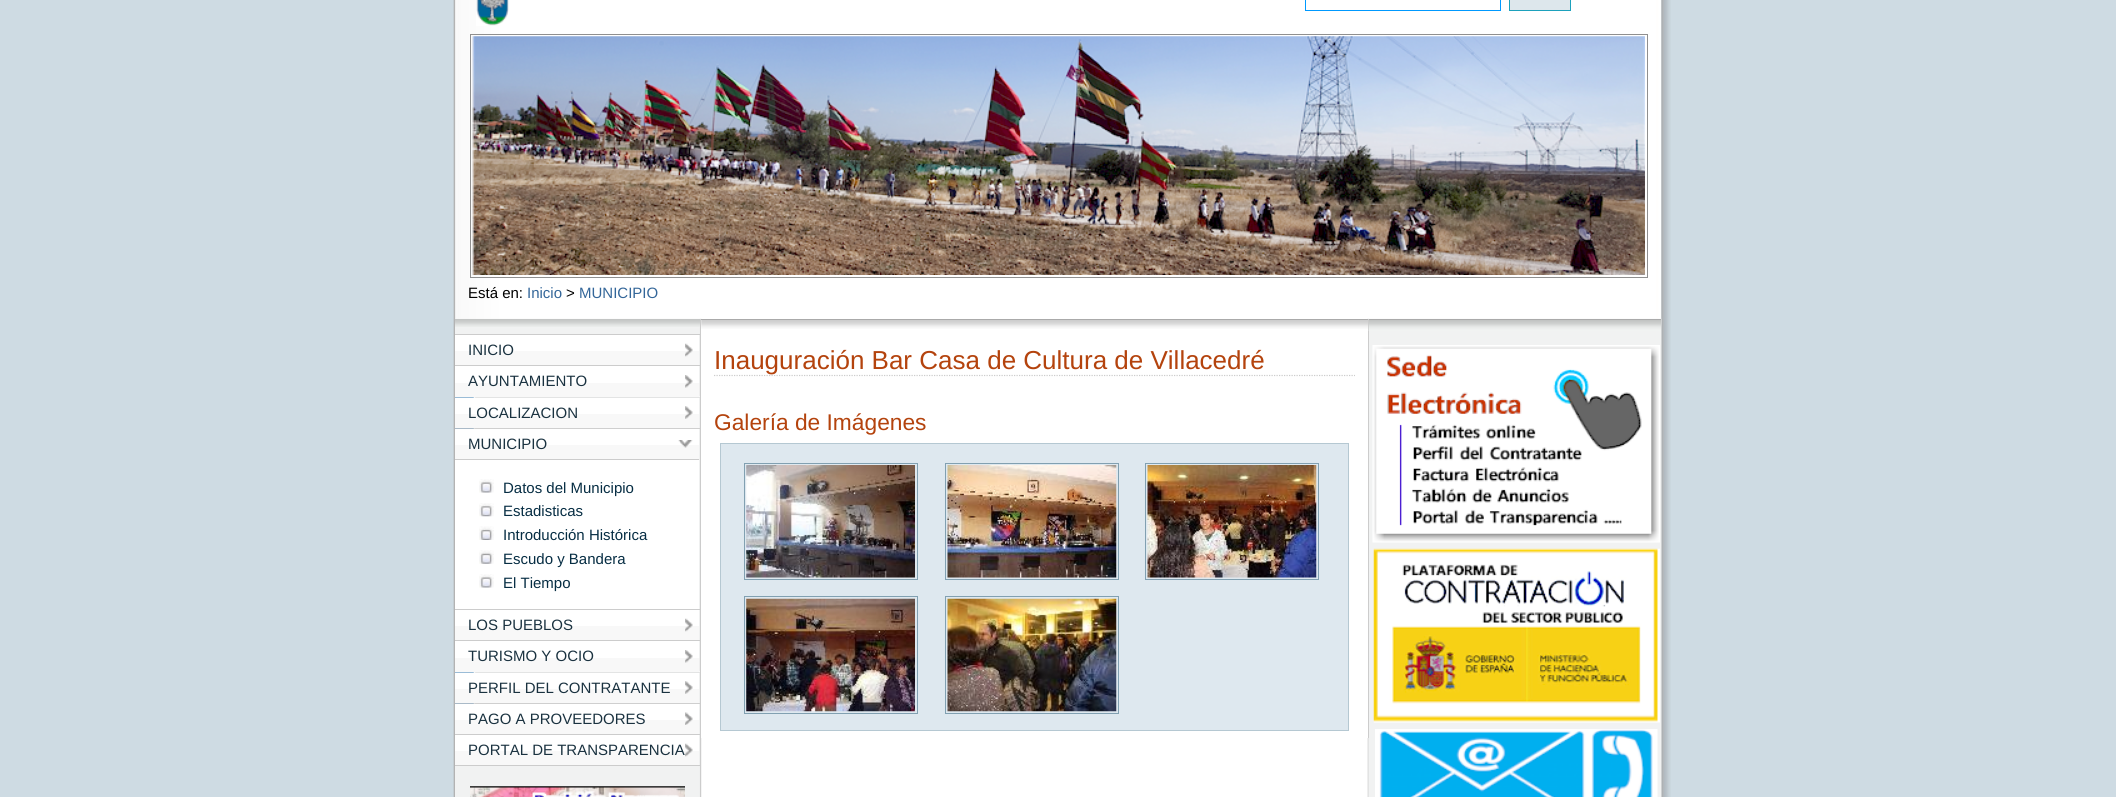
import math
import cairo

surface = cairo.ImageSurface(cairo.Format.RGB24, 2116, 797)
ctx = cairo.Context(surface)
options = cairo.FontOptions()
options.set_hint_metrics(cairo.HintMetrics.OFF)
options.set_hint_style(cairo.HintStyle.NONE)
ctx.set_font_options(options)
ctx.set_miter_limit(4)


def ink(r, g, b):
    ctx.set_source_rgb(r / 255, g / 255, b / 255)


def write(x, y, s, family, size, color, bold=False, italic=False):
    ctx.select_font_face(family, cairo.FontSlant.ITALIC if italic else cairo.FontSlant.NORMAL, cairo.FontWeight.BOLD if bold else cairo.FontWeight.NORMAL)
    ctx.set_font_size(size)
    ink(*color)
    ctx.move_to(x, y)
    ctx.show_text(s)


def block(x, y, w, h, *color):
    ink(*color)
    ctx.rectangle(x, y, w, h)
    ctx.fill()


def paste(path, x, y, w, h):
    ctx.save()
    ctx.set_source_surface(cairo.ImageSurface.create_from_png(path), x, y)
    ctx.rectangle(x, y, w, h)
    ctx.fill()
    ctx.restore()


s1 = dict(family="Liberation Sans", size=15, color=(0, 0, 0))
s2 = dict(family="Liberation Sans", size=15, color=(51, 102, 153))
s3 = dict(family="Liberation Sans", size=15, color=(26, 50, 64))
s4 = dict(family="Liberation Sans", size=15, color=(6, 45, 67))
s5 = dict(family="Liberation Sans", size=26, color=(180, 67, 13))
s6 = dict(family="Liberation Sans", size=22.75, color=(180, 67, 13))

ink(206, 219, 227)
ctx.paint()
paste("pic1.png", 453, 0, 1218, 797)
paste("pic2.png", 476, 0, 33, 26)
ctx.rectangle(1305.5, -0.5, 195, 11)
ink(0, 153, 255)
ctx.set_line_width(1)
ctx.stroke()
ink(221, 231, 236)
ctx.rectangle(1509.5, -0.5, 61, 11)
ctx.fill_preserve()
ink(29, 161, 188)
ctx.stroke()
ctx.rectangle(470.5, 34.5, 1177, 243)
ink(143, 143, 143)
ctx.stroke()
paste("pic3.png", 472, 36, 1173, 239)
write(468, 298, "Está en:", **s1)
write(527, 298, "Inicio", **s2)
write(566, 298, ">", **s1)
write(579, 298, "MUNICIPIO", **s2)
paste("pic4.png", 455, 318, 1207, 479)
paste("pic5.png", 455, 319, 245, 8)
block(700, 319, 1, 478, 204, 204, 204)
block(455, 334, 245, 1, 204, 204, 204)
block(455, 365, 245, 1, 204, 204, 204)
block(455, 335, 244, 16, 255, 255, 255)
block(455, 351, 244, 14, 248, 248, 248)
paste("pic6.png", 685, 343, 8, 14)
write(468, 355, "INICIO", **s3)
block(455, 366, 244, 17, 255, 255, 255)
block(455, 383, 245, 14, 248, 248, 248)
block(699, 383, 1, 13, 238, 238, 238)
paste("pic7.png", 685, 375, 8, 13)
write(468, 386, "AYUNTAMIENTO", **s3)
paste("pic8.png", 455, 397, 245, 1)
block(455, 428, 245, 1, 204, 204, 204)
block(455, 398, 244, 16, 255, 255, 255)
block(455, 414, 244, 14, 248, 248, 248)
paste("pic9.png", 685, 406, 8, 13)
write(468, 418, "LOCALIZACION", **s3)
paste("pic10.png", 455, 428, 245, 1)
block(455, 609, 245, 1, 204, 204, 204)
block(455, 429, 244, 16, 255, 255, 255)
block(455, 445, 244, 14, 248, 248, 248)
paste("pic11.png", 678, 440, 15, 8)
write(468, 449, "MUNICIPIO", **s3)
block(455, 460, 244, 149, 255, 255, 255)
block(455, 459, 245, 1, 204, 204, 204)
block(699, 459, 1, 1, 238, 238, 238)
paste("pic12.png", 479, 479, 15, 14)
write(503, 493, "Datos del Municipio", **s4)
paste("pic13.png", 479, 503, 15, 14)
write(503, 516, "Estadisticas", **s4)
paste("pic14.png", 479, 526, 15, 14)
write(503, 540, "Introducción Histórica", **s4)
paste("pic15.png", 479, 550, 15, 14)
write(503, 564, "Escudo y Bandera", **s4)
paste("pic12.png", 479, 574, 15, 14)
write(503, 588, "El Tiempo", **s4)
block(455, 640, 245, 1, 204, 204, 204)
block(455, 610, 244, 16, 255, 255, 255)
block(455, 626, 244, 14, 248, 248, 248)
paste("pic6.png", 685, 618, 8, 14)
write(468, 630, "LOS PUEBLOS", **s3)
block(455, 641, 244, 17, 255, 255, 255)
block(455, 658, 245, 14, 248, 248, 248)
block(699, 658, 1, 13, 238, 238, 238)
paste("pic7.png", 685, 650, 8, 13)
write(468, 661, "TURISMO Y OCIO", **s3)
paste("pic8.png", 455, 672, 245, 1)
block(455, 703, 245, 1, 204, 204, 204)
block(455, 673, 244, 16, 255, 255, 255)
block(455, 689, 244, 14, 248, 248, 248)
paste("pic9.png", 685, 681, 8, 13)
write(468, 693, "PERFIL DEL CONTRATANTE", **s3)
paste("pic10.png", 455, 703, 245, 1)
block(455, 734, 245, 1, 204, 204, 204)
block(455, 704, 244, 16, 255, 255, 255)
block(455, 720, 244, 14, 248, 248, 248)
paste("pic16.png", 685, 712, 8, 13)
write(468, 724, "PAGO A PROVEEDORES", **s3)
block(455, 765, 245, 1, 204, 204, 204)
block(455, 735, 244, 16, 255, 255, 255)
block(455, 751, 244, 14, 248, 248, 248)
paste("pic6.png", 685, 743, 8, 14)
write(468, 755, "PORTAL DE TRANSPARENCIA", **s3)
paste("pic17.png", 470, 786, 215, 11)
block(701, 320, 667, 418, 255, 255, 255)
paste("pic18.png", 701, 320, 667, 9)
block(701, 319, 960, 1, 170, 170, 170)
block(1368, 319, 1, 419, 204, 204, 204)
ctx.new_path()
ctx.move_to(714, 375.5)
ctx.line_to(1355, 375.5)
ctx.set_line_width(1.2)
ctx.set_dash([1.25, 1.25])
ctx.stroke()
write(714, 369, "Inauguración Bar Casa de Cultura de Villacedré", **s5)
write(714, 430, "Galería de Imágenes", **s6)
ink(222, 232, 239)
ctx.rectangle(720.5, 443.5, 628, 287)
ctx.fill_preserve()
ink(181, 200, 210)
ctx.set_line_width(1)
ctx.set_dash([])
ctx.stroke()
ctx.rectangle(744.5, 463.5, 173, 116)
ink(129, 160, 177)
ctx.stroke()
ctx.rectangle(945.5, 463.5, 173, 116)
ctx.stroke()
ctx.rectangle(1145.5, 463.5, 173, 116)
ctx.stroke()
paste("pic19.png", 746, 465, 169, 113)
paste("pic20.png", 947, 465, 170, 113)
paste("pic21.png", 1147, 465, 170, 113)
ctx.rectangle(744.5, 596.5, 173, 117)
ctx.stroke()
ctx.rectangle(945.5, 596.5, 173, 117)
ctx.stroke()
paste("pic22.png", 746, 598, 169, 114)
paste("pic23.png", 947, 598, 170, 114)
paste("pic24.png", 1368, 320, 293, 11)
paste("pic25.png", 1372, 345, 288, 198)
paste("pic26.png", 1373, 548, 287, 175)
paste("pic27.png", 1375, 729, 283, 68)
surface.write_to_png("screenshot.png")
